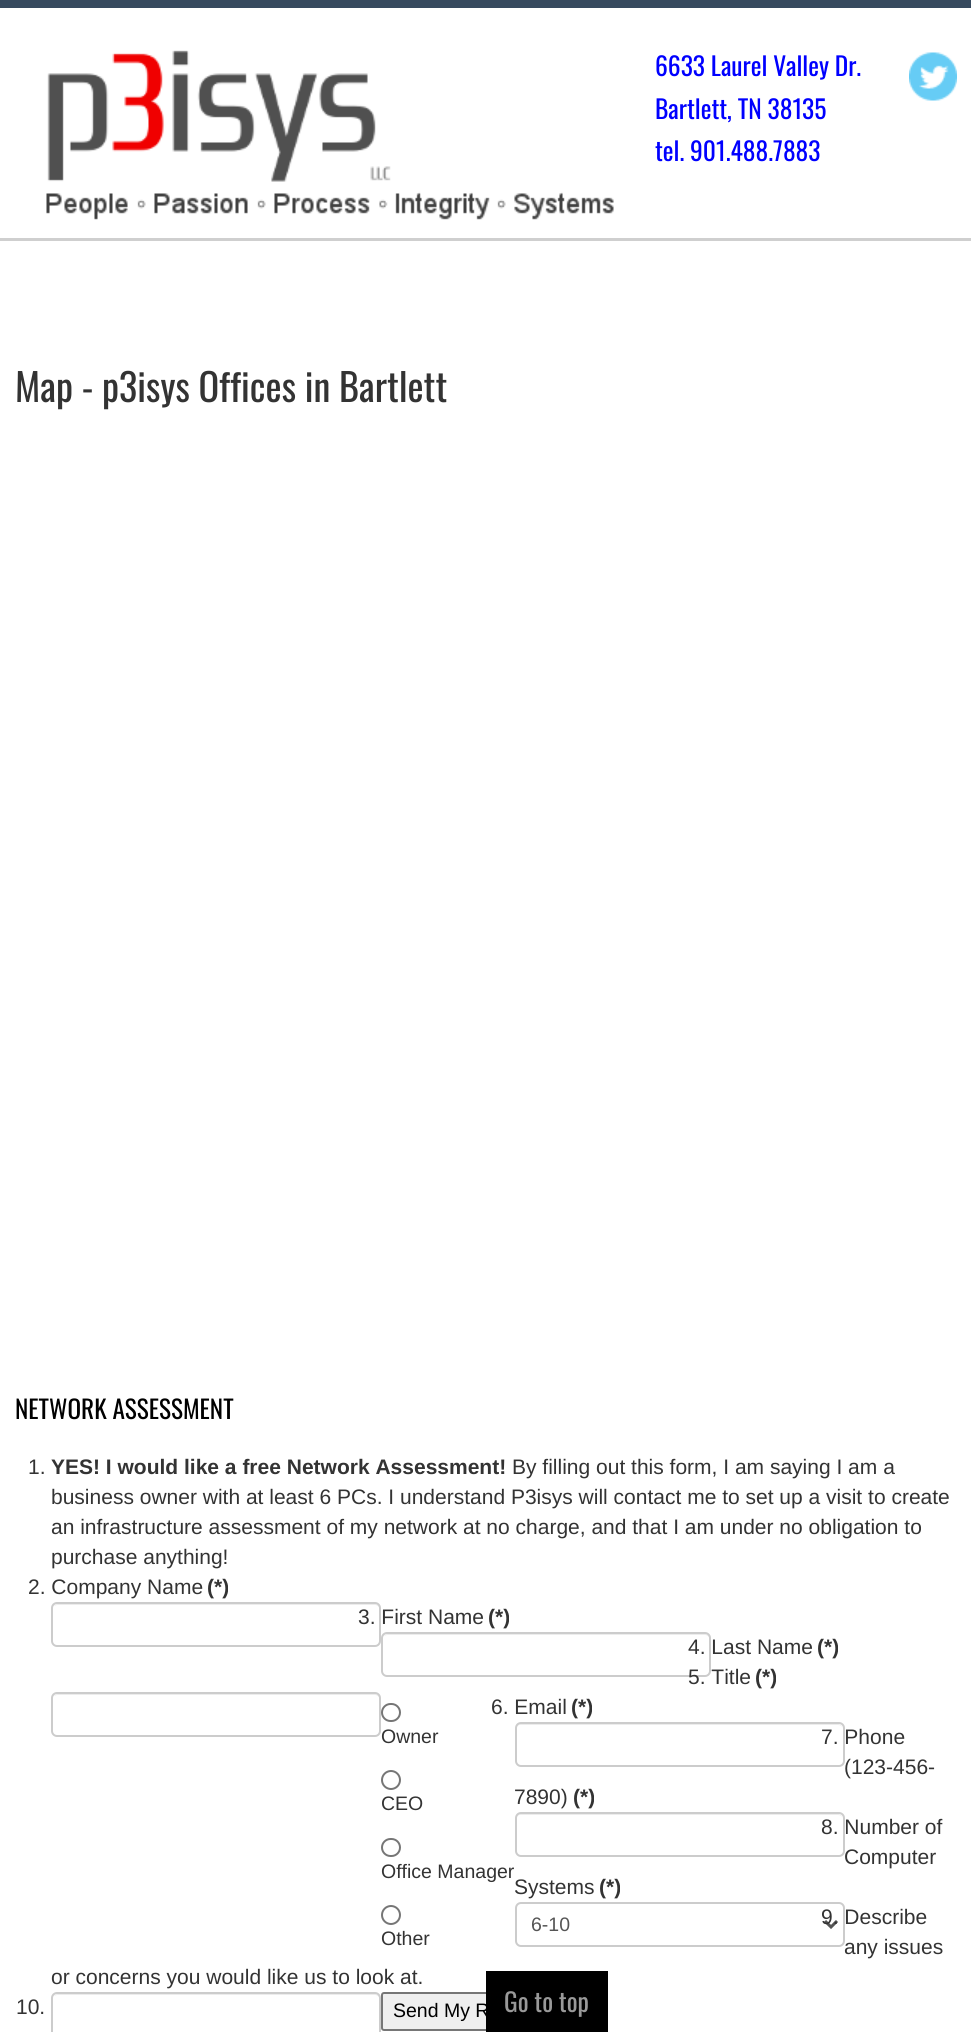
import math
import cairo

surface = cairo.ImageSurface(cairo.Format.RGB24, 971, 2032)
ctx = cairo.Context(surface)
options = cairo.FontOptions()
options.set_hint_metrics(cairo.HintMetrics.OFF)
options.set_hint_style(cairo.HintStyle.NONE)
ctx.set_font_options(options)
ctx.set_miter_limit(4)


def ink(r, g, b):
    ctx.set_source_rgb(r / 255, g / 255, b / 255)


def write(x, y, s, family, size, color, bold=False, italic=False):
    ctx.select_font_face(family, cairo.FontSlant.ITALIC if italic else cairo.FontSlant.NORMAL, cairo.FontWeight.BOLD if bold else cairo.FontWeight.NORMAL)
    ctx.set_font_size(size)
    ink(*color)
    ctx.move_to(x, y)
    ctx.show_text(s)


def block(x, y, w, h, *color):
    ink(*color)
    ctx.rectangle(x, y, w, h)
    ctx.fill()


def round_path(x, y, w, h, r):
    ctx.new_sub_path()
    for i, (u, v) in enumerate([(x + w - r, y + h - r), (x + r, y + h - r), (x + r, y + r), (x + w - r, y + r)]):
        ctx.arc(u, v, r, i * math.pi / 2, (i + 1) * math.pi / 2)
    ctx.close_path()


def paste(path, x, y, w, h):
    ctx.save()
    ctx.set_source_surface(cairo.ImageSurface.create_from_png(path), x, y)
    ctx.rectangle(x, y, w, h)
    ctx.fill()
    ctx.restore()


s1 = dict(family="Oswald", size=25.5, color=(0, 0, 255))
s2 = dict(family="Oswald", size=38.25, color=(51, 51, 51))
s3 = dict(family="Oswald", size=25.25, color=(0, 0, 0))
s4 = dict(family="Liberation Sans", size=21, color=(51, 51, 51))
s5 = dict(family="Liberation Sans", size=21, color=(51, 51, 51), bold=True)
s6 = dict(family="Liberation Sans", size=19.5, color=(51, 51, 51))
s7 = dict(family="Liberation Sans", size=19.5, color=(85, 85, 85))
s8 = dict(family="Liberation Sans", size=19.5, color=(0, 0, 0))
s9 = dict(family="Oswald", size=25.5, color=(153, 153, 153))

ink(255, 255, 255)
ctx.paint()
block(0, 0, 971, 8, 55, 74, 95)
paste("pic1.png", 46, 50, 568, 170)
write(655, 76, "6633 Laurel Valley Dr.", **s1)
write(655, 119, "Bartlett, TN 38135", **s1)
write(655, 161, "tel. 901.488.7883", **s1)
paste("pic2.png", 909, 52, 48, 49)
block(0, 238, 971, 3, 207, 207, 207)
write(15, 402, "Map - p3isys Offices in Bartlett", **s2)
write(15, 1419, "NETWORK ASSESSMENT", **s3)
write(28, 1474, "1.", **s4)
write(51, 1474, "YES! I would like a free Network Assessment!", **s5)
write(512, 1474, "By filling out this form, I am saying I am a", **s4)
write(51, 1504, "business owner with at least 6 PCs. I understand P3isys will contact me to set up a visit to create", **s4)
write(51, 1534, "an infrastructure assessment of my network at no charge, and that I am under no obligation to", **s4)
write(51, 1564, "purchase anything!", **s4)
write(28, 1594, "2. Company Name", **s4)
write(207, 1594, "(*)", **s5)
ink(236, 236, 236)
ctx.new_path()
ctx.move_to(57, 1605)
ctx.line_to(375, 1605)
ctx.curve_to(377, 1605, 380, 1607, 380, 1610)
ctx.line_to(380, 1609)
ctx.curve_to(380, 1606, 378, 1604, 375, 1604)
ctx.line_to(58, 1604)
ctx.curve_to(56, 1604, 55, 1605, 54, 1606)
ctx.close_path()
ctx.fill()
round_path(52, 1603, 328, 43, 5)
ink(204, 204, 204)
ctx.stroke()
write(358, 1624, "3. First Name", **s4)
write(488, 1624, "(*)", **s5)
ink(236, 236, 236)
ctx.new_path()
ctx.move_to(387, 1635)
ctx.line_to(705, 1635)
ctx.curve_to(707, 1635, 710, 1637, 710, 1640)
ctx.line_to(710, 1639)
ctx.curve_to(710, 1636, 708, 1634, 705, 1634)
ctx.line_to(388, 1634)
ctx.curve_to(386, 1634, 385, 1635, 384, 1636)
ctx.close_path()
ctx.fill()
round_path(382, 1633, 328, 43, 5)
ink(204, 204, 204)
ctx.stroke()
write(688, 1654, "4. Last Name", **s4)
write(817, 1654, "(*)", **s5)
ink(236, 236, 236)
ctx.new_path()
ctx.move_to(57, 1695)
ctx.line_to(375, 1695)
ctx.curve_to(377, 1695, 380, 1697, 380, 1700)
ctx.line_to(380, 1699)
ctx.curve_to(380, 1696, 378, 1694, 375, 1694)
ctx.line_to(58, 1694)
ctx.curve_to(56, 1694, 55, 1695, 54, 1696)
ctx.close_path()
ctx.fill()
round_path(52, 1693, 328, 43, 5)
ink(204, 204, 204)
ctx.stroke()
write(688, 1684, "5. Title", **s4)
write(755, 1684, "(*)", **s5)
round_path(382, 1704, 18, 17, 8.5)
ink(118, 118, 118)
ctx.stroke()
write(381, 1743, "Owner", **s6)
ctx.new_path()
ctx.arc(391, 1780, 9, 0, 2 * math.pi)
ink(118, 118, 118)
ctx.stroke()
write(381, 1810, "CEO", **s6)
round_path(382, 1839, 18, 17, 8.5)
ink(118, 118, 118)
ctx.stroke()
write(381, 1878, "Office Manager", **s6)
ctx.new_path()
ctx.arc(391, 1915, 9, 0, 2 * math.pi)
ink(118, 118, 118)
ctx.stroke()
write(381, 1945, "Other", **s6)
write(491, 1714, "6. Email", **s4)
write(571, 1714, "(*)", **s5)
ink(236, 236, 236)
ctx.new_path()
ctx.move_to(520, 1725)
ctx.line_to(838, 1725)
ctx.curve_to(841, 1725, 843, 1727, 843, 1730)
ctx.curve_to(843, 1727, 841, 1724, 838, 1724)
ctx.line_to(521, 1724)
ctx.curve_to(518, 1724, 516, 1727, 516, 1730)
ctx.curve_to(516, 1727, 518, 1725, 520, 1725)
ctx.close_path()
ctx.fill()
round_path(516, 1723, 328, 43, 5)
ink(204, 204, 204)
ctx.stroke()
write(821, 1744, "7. Phone", **s4)
write(844, 1774, "(123-456-", **s4)
write(514, 1804, "7890)", **s4)
write(573, 1804, "(*)", **s5)
ink(236, 236, 236)
ctx.new_path()
ctx.move_to(520, 1815)
ctx.line_to(838, 1815)
ctx.curve_to(841, 1815, 843, 1817, 843, 1820)
ctx.curve_to(843, 1817, 841, 1814, 838, 1814)
ctx.line_to(521, 1814)
ctx.curve_to(518, 1814, 516, 1817, 516, 1820)
ctx.curve_to(516, 1817, 518, 1815, 520, 1815)
ctx.close_path()
ctx.fill()
round_path(516, 1813, 328, 43, 5)
ink(204, 204, 204)
ctx.stroke()
write(821, 1834, "8. Number of", **s4)
write(844, 1864, "Computer", **s4)
write(514, 1894, "Systems", **s4)
write(599, 1894, "(*)", **s5)
round_path(516, 1903, 328, 43, 5)
ink(204, 204, 204)
ctx.stroke()
ctx.new_path()
ctx.move_to(825, 1921)
ctx.line_to(831, 1927)
ctx.line_to(837, 1921)
ink(85, 85, 85)
ctx.set_line_width(3)
ctx.stroke()
write(531, 1931, "6-10", **s7)
write(821, 1924, "9. Describe", **s4)
write(844, 1954, "any issues", **s4)
write(51, 1984, "or concerns you would like us to look at.", **s4)
ink(236, 236, 236)
ctx.new_path()
ctx.move_to(57, 1995)
ctx.line_to(375, 1995)
ctx.curve_to(377, 1995, 380, 1997, 380, 2000)
ctx.line_to(380, 1999)
ctx.curve_to(380, 1996, 378, 1994, 375, 1994)
ctx.line_to(58, 1994)
ctx.curve_to(56, 1994, 55, 1995, 54, 1996)
ctx.close_path()
ctx.fill()
round_path(52, 1993, 328, 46, 5)
ink(204, 204, 204)
ctx.set_line_width(2)
ctx.stroke()
write(16, 2014, "10.", **s4)
ink(239, 239, 239)
round_path(382, 1993, 177, 37, 2)
ctx.fill_preserve()
ink(118, 118, 118)
ctx.stroke()
write(393, 2017, "Send My R", **s8)
block(486, 1971, 122, 61, 0, 0, 0)
write(504, 2012, "Go to top", **s9)
surface.write_to_png("screenshot.png")
